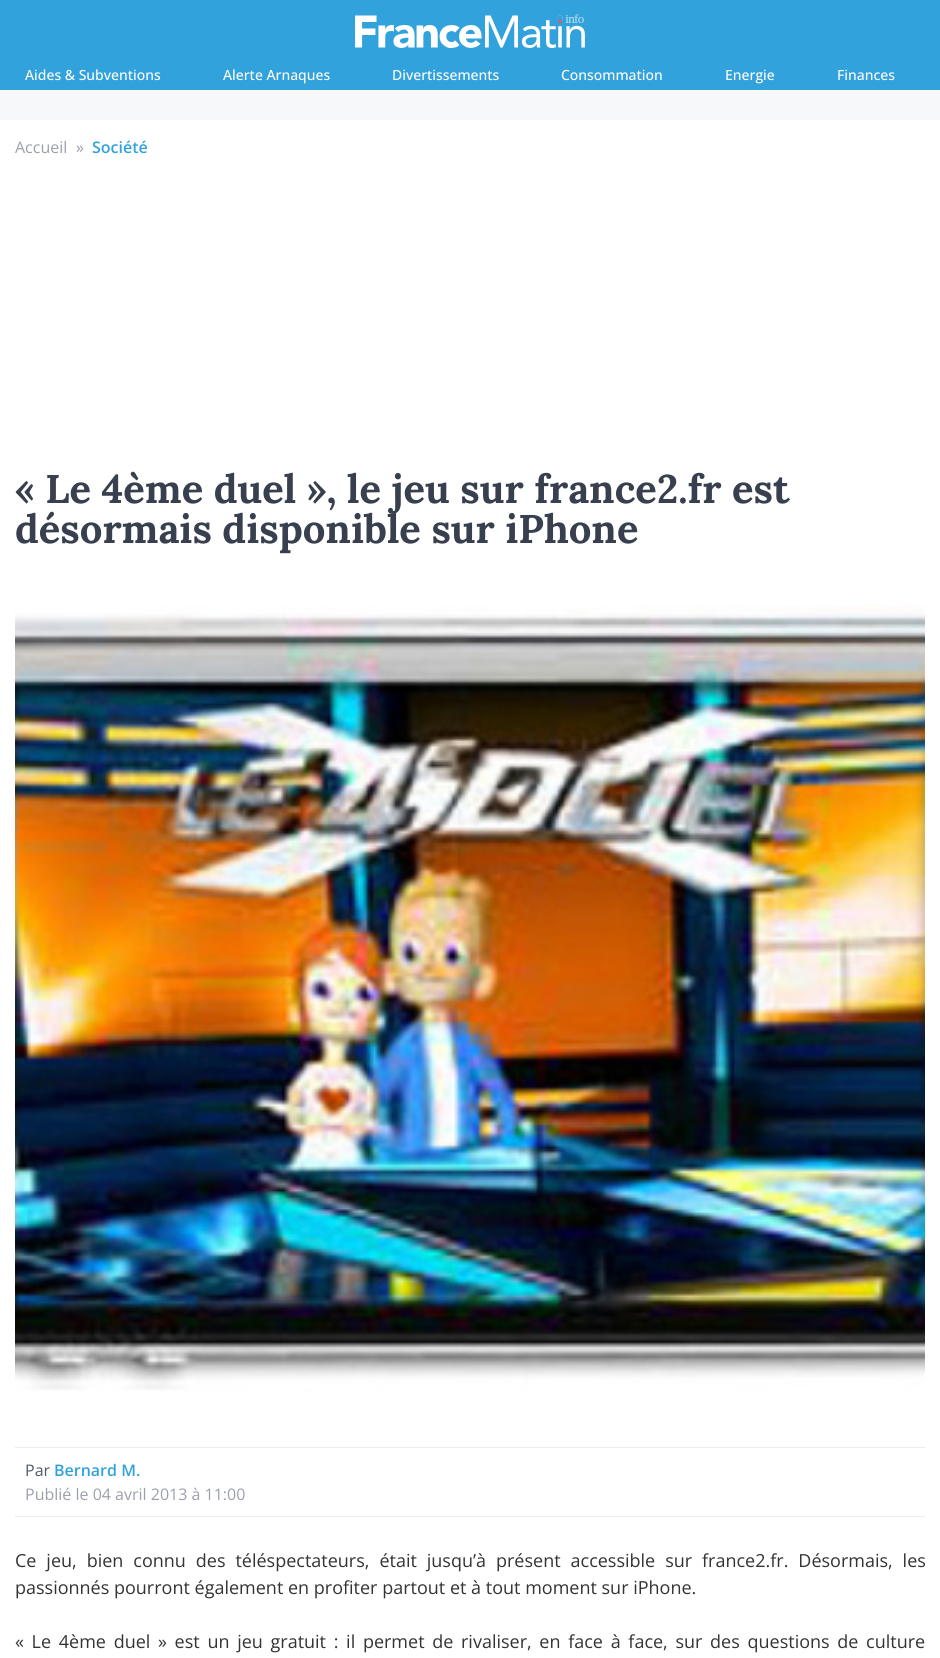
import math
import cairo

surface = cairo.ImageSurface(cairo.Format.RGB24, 940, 1658)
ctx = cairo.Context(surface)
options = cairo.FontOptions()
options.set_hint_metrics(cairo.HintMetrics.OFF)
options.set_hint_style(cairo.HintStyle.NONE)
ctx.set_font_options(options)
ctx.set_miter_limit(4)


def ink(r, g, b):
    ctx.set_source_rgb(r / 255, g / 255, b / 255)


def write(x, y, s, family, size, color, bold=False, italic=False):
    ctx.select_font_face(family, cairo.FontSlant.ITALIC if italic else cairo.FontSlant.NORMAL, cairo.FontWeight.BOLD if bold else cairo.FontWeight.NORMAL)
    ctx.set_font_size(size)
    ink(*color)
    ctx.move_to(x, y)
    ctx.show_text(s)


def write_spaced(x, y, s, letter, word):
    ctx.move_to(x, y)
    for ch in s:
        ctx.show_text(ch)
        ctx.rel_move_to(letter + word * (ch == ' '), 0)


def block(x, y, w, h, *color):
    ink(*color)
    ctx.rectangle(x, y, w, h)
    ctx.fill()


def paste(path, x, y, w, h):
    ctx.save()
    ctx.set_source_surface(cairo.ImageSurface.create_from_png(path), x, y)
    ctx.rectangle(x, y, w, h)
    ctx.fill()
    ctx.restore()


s1 = dict(family="Open Sans Medium", size=14, color=(255, 255, 255))
s2 = dict(family="Open Sans", size=16, color=(156, 160, 172))
s3 = dict(family="Open Sans SemiBold", size=16, color=(50, 162, 220))
s4 = dict(family="Lora", size=40, color=(56, 63, 78), bold=True)
s5 = dict(family="Open Sans", size=16, color=(83, 89, 108))
s6 = dict(family="Open Sans", size=18, color=(51, 51, 51))

ink(247, 248, 249)
ctx.paint()
block(0, 0, 940, 90, 50, 162, 220)
paste("pic1.png", 355, 14, 230, 34)
write(25, 80, "Aides & Subventions", **s1)
write(223, 80, "Alerte Arnaques", **s1)
write(392, 80, "Divertissements", **s1)
write(561, 80, "Consommation", **s1)
write(725, 80, "Energie", **s1)
write(837, 80, "Finances", **s1)
block(0, 120, 940, 1538, 255, 255, 255)
write(15, 153, "Accueil", **s2)
write(76, 153, "»", **s2)
write(92, 153, "Société", **s3)
write(15, 503, "« Le 4ème duel », le jeu sur france2.fr est", **s4)
write(15, 543, "désormais disponible sur iPhone", **s4)
paste("pic2.png", 15, 605, 910, 786)
block(15, 1447, 910, 1, 232, 237, 240)
block(15, 1516, 910, 1, 232, 237, 240)
write(25, 1476, "Par", **s5)
write(54, 1476, "Bernard M.", **s3)
write(25, 1500, "Publié le 04 avril 2013 à 11:00", **s2)
ctx.set_font_size(18)
ink(51, 51, 51)
write_spaced(15, 1567, "Ce jeu, bien connu des téléspectateurs, était jusqu’à présent accessible sur france2.fr. Désormais, les", 0, 5.25)
write(15, 1594, "passionnés pourront également en profiter partout et à tout moment sur iPhone.", **s6)
write_spaced(15, 1648, "« Le 4ème duel » est un jeu gratuit : il permet de rivaliser, en face à face, sur des questions de culture", 0, 3)
surface.write_to_png("screenshot.png")
